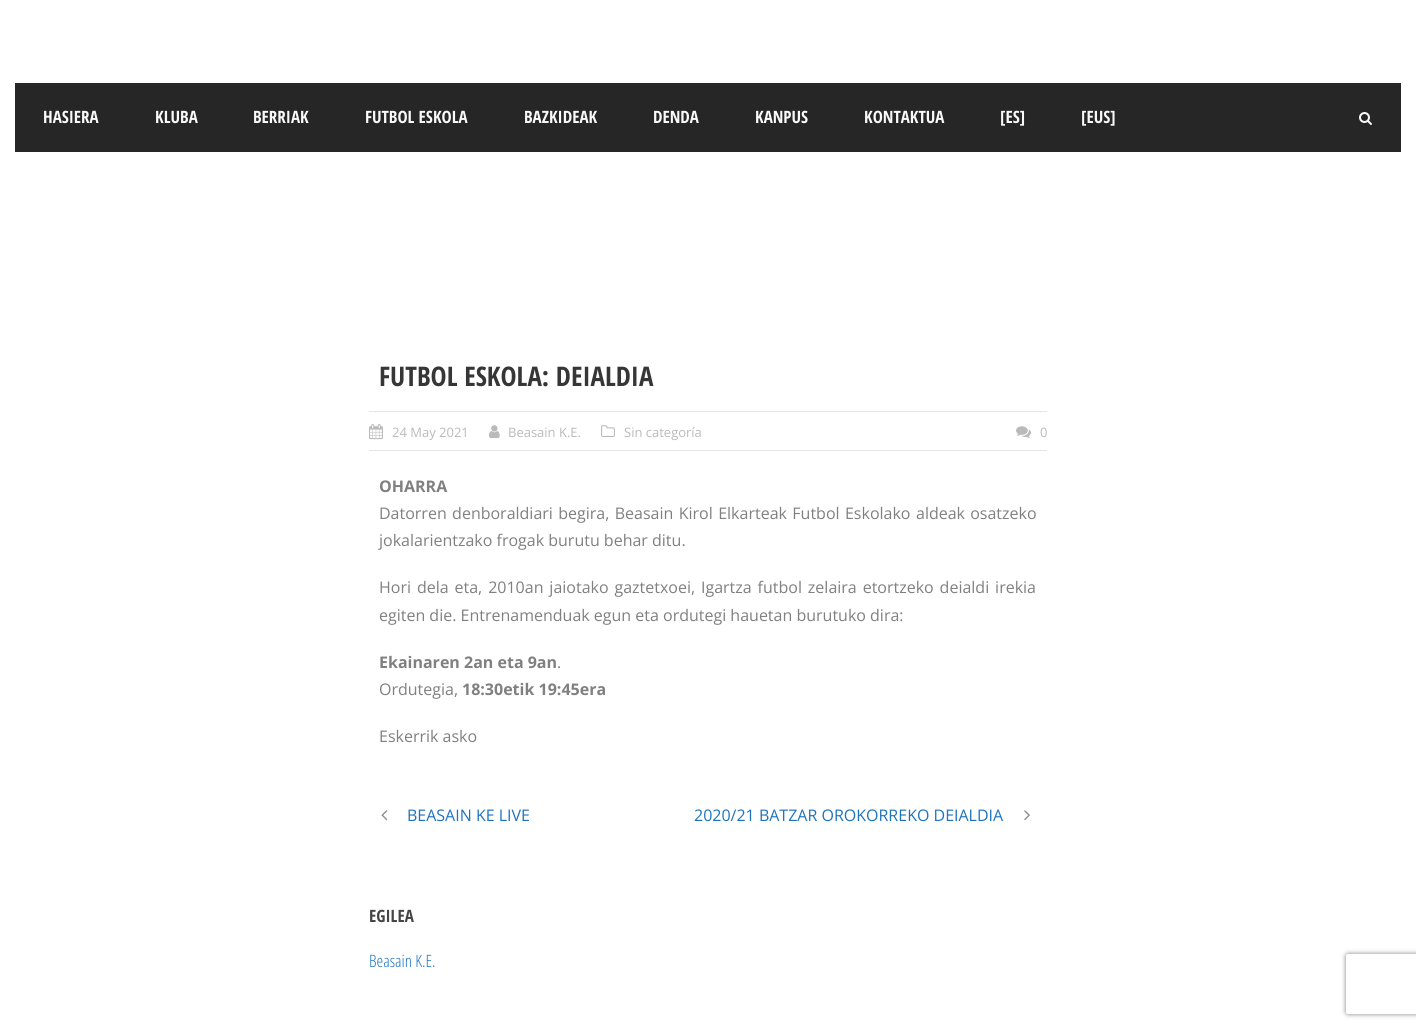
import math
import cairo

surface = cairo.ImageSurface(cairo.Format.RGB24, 1416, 1028)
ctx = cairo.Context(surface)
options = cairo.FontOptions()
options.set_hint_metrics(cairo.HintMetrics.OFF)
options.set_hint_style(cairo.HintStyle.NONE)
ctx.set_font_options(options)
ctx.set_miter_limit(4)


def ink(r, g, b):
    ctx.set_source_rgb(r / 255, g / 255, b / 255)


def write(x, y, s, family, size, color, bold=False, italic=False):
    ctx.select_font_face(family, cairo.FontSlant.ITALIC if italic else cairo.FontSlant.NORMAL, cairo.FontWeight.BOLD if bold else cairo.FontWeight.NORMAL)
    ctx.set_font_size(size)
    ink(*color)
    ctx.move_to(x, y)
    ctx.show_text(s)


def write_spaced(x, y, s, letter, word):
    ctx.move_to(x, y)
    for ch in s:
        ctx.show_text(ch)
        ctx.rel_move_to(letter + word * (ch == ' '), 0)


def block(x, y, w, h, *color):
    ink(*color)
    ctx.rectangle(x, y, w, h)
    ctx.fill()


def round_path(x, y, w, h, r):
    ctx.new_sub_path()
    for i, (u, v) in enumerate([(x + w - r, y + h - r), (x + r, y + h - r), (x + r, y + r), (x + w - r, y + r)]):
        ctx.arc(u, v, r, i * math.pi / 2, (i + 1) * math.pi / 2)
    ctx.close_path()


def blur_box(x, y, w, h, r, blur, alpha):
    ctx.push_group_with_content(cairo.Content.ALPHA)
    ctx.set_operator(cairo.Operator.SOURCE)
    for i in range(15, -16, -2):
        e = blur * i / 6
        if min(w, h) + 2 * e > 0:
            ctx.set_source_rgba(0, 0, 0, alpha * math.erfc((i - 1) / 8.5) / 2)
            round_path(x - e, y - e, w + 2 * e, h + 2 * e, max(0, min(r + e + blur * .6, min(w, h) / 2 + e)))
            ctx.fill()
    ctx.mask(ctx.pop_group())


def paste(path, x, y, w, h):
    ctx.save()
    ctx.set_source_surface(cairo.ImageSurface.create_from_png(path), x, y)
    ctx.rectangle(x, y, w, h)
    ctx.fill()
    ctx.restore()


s1 = dict(family="Open Sans Condensed", size=17, color=(249, 249, 249), bold=True)
s2 = dict(family="Open Sans Condensed", size=27, color=(54, 54, 54), bold=True)
s3 = dict(family="Open Sans", size=13, color=(186, 186, 186))
s4 = dict(family="Open Sans", size=16, color=(128, 128, 128), bold=True)
s5 = dict(family="Open Sans", size=16, color=(128, 128, 128))
s6 = dict(family="Open Sans", size=16, color=(30, 115, 190))
s7 = dict(family="Open Sans Condensed", size=17, color=(69, 69, 69), bold=True)
s8 = dict(family="Open Sans Condensed Light", size=17, color=(30, 115, 190))

ink(255, 255, 255)
ctx.paint()
block(15, 83, 1386, 69, 38, 38, 38)
write(43, 123, "HASIERA", **s1)
write(155, 123, "KLUBA", **s1)
write(253, 123, "BERRIAK", **s1)
write(365, 123, "FUTBOL ESKOLA", **s1)
write(524, 123, "BAZKIDEAK", **s1)
write(653, 123, "DENDA", **s1)
write(755, 123, "KANPUS", **s1)
write(864, 123, "KONTAKTUA", **s1)
write(1000, 123, "[ES]", **s1)
write(1081, 123, "[EUS]", **s1)
paste("pic1.png", 1359, 112, 13, 13)
write(379, 386, "FUTBOL ESKOLA: DEIALDIA", **s2)
block(369, 411, 678, 1, 229, 229, 229)
block(369, 450, 678, 1, 229, 229, 229)
paste("pic2.png", 369, 424, 14, 16)
write(392, 437, "24 May 2021", **s3)
paste("pic3.png", 489, 425, 11, 14)
write(508, 437, "Beasain K.E.", **s3)
paste("pic4.png", 601, 425, 14, 12)
write(624, 437, "Sin categoría", **s3)
paste("pic5.png", 1016, 426, 15, 12)
write(1040, 437, "0", **s3)
write(379, 492, "OHARRA", **s4)
ctx.select_font_face("Open Sans")
write_spaced(379, 519, "Datorren denboraldiari begira, Beasain Kirol Elkarteak Futbol Eskolako", 0, 1.25)
write_spaced(916, 519, "aldeak osatzeko", 0, 1)
write(379, 546, "jokalarientzako frogak burutu behar ditu.", **s5)
write_spaced(379, 593, "Hori dela eta, 2010an jaiotako gaztetxoei, Igartza futbol zelaira etortzeko deialdi irekia", 0, 1.75)
write(379, 621, "egiten die. Entrenamenduak egun eta ordutegi hauetan burutuko dira:", **s5)
write(379, 668, "Ekainaren 2an eta 9an", **s4)
write(557, 668, ".", **s5)
write(379, 695, "Ordutegia,", **s5)
write(462, 695, "18:30etik 19:45era", **s4)
write(379, 742, "Eskerrik asko", **s5)
paste("pic6.png", 381, 810, 7, 11)
write(407, 821, "BEASAIN KE LIVE", **s6)
write(694, 821, "2020/21 BATZAR OROKORREKO DEIALDIA", **s6)
paste("pic7.png", 1024, 810, 6, 11)
write(369, 922, "EGILEA", **s7)
write(369, 967, "Beasain K.E.", **s8)
ctx.save()
ctx.set_fill_rule(cairo.FillRule.EVEN_ODD)
ctx.new_path()
ctx.move_to(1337, 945)
ctx.line_to(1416, 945)
ctx.line_to(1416, 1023)
ctx.line_to(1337, 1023)
ctx.close_path()
ctx.move_to(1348, 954)
ctx.line_to(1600, 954)
ctx.curve_to(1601, 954, 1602, 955, 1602, 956)
ctx.line_to(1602, 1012)
ctx.curve_to(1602, 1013, 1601, 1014, 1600, 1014)
ctx.line_to(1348, 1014)
ctx.curve_to(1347, 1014, 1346, 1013, 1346, 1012)
ctx.line_to(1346, 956)
ctx.curve_to(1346, 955, 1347, 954, 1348, 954)
ctx.close_path()
ctx.clip()
ink(128, 128, 128)
blur_box(1346, 954, 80, 60, 2, 2.5, 1)
ctx.restore()
surface.write_to_png("screenshot.png")
